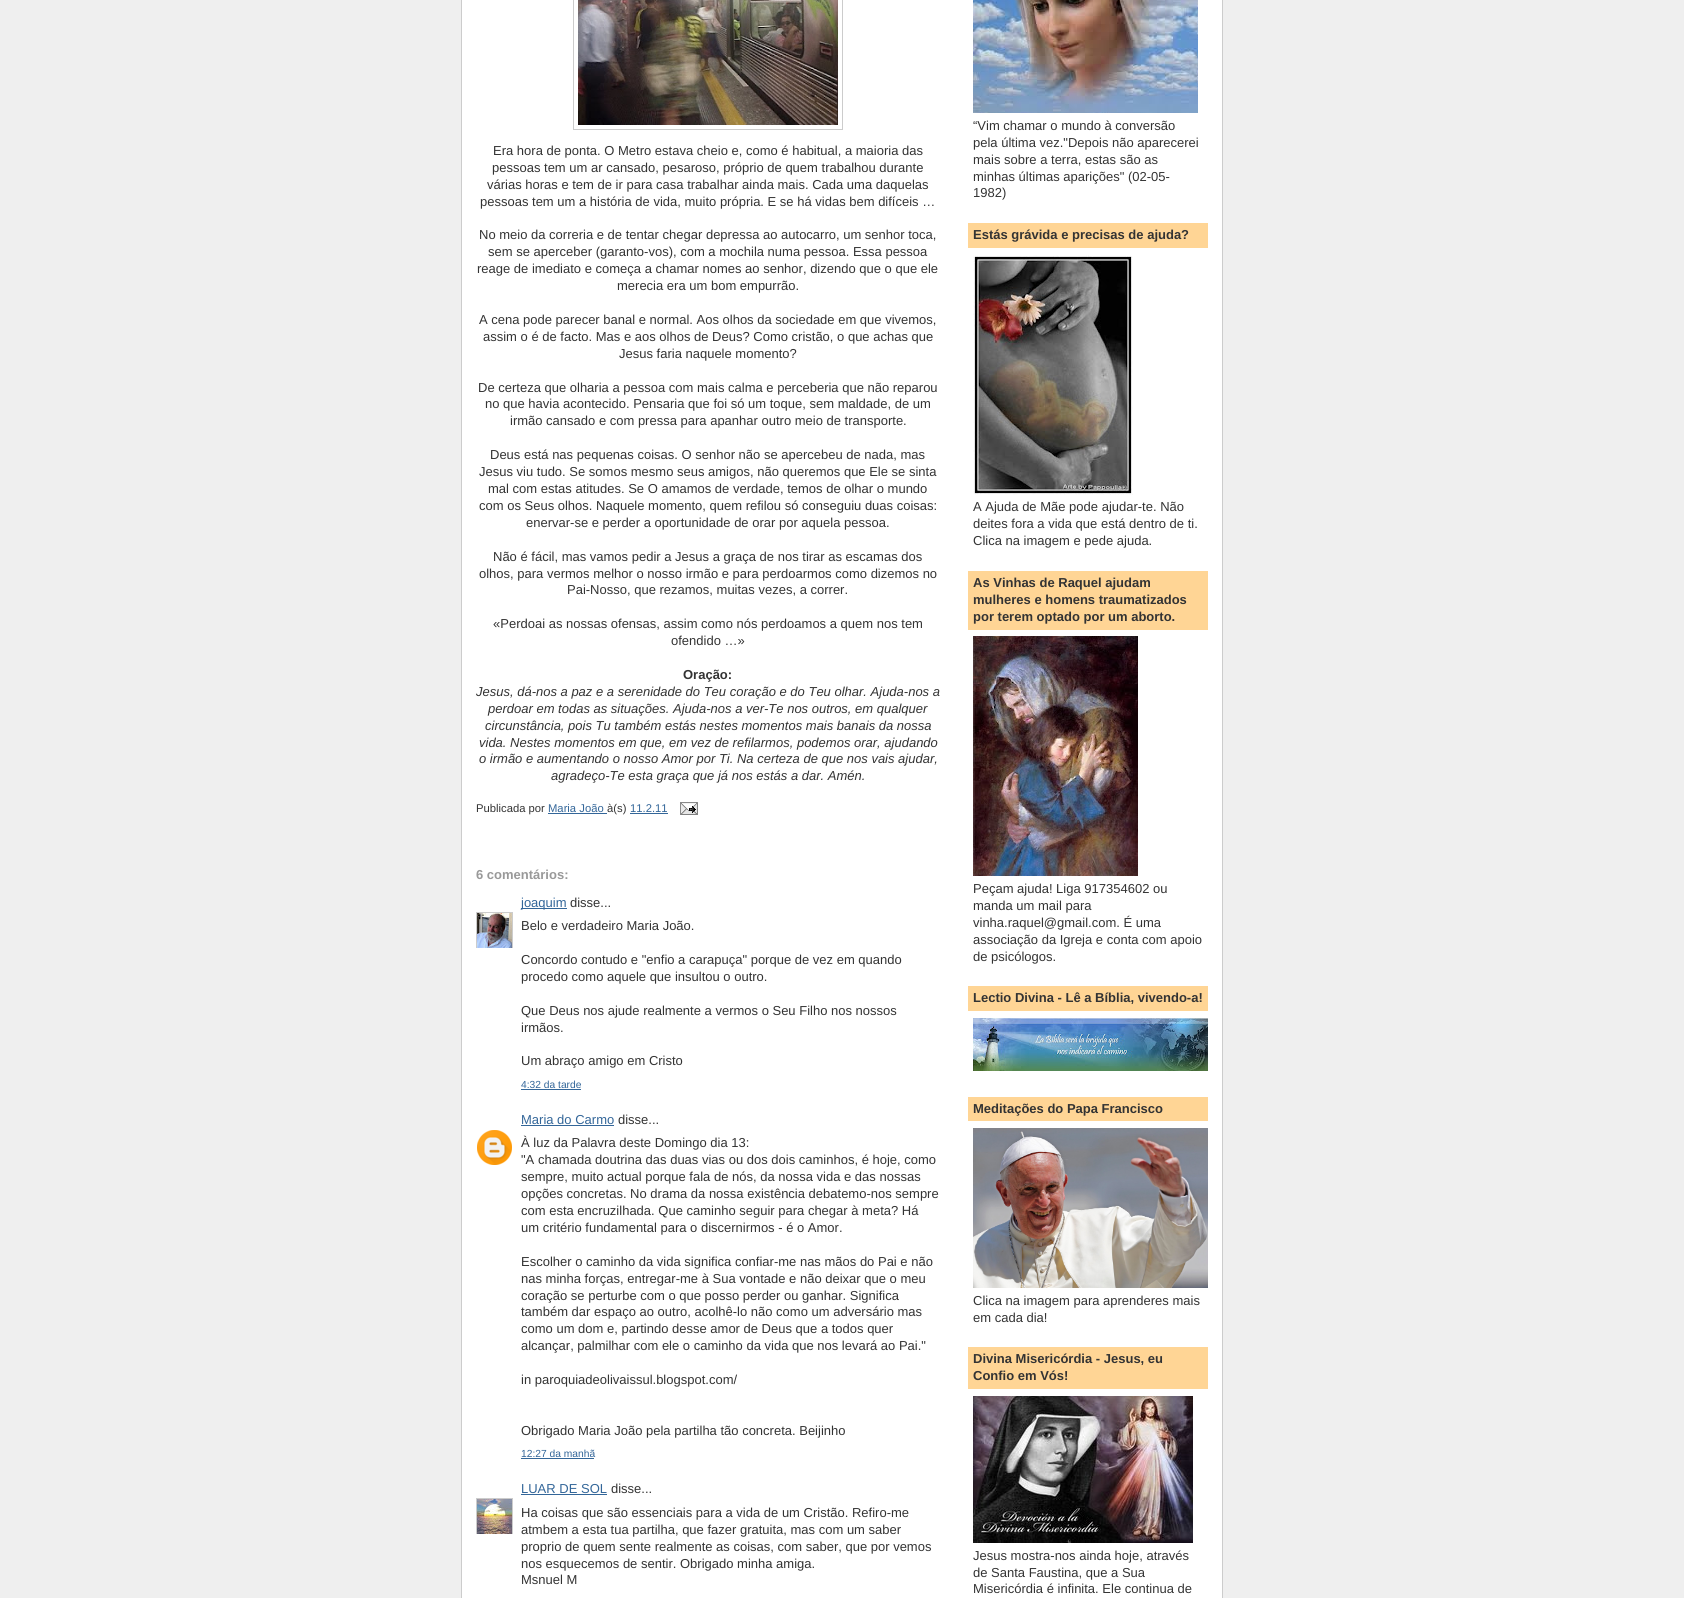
import math
import cairo

surface = cairo.ImageSurface(cairo.Format.RGB24, 1684, 1598)
ctx = cairo.Context(surface)
options = cairo.FontOptions()
options.set_hint_metrics(cairo.HintMetrics.OFF)
options.set_hint_style(cairo.HintStyle.NONE)
ctx.set_font_options(options)
ctx.set_miter_limit(4)


def ink(r, g, b):
    ctx.set_source_rgb(r / 255, g / 255, b / 255)


def write(x, y, s, family, size, color, bold=False, italic=False):
    ctx.select_font_face(family, cairo.FontSlant.ITALIC if italic else cairo.FontSlant.NORMAL, cairo.FontWeight.BOLD if bold else cairo.FontWeight.NORMAL)
    ctx.set_font_size(size)
    ink(*color)
    ctx.move_to(x, y)
    ctx.show_text(s)


def block(x, y, w, h, *color):
    ink(*color)
    ctx.rectangle(x, y, w, h)
    ctx.fill()


def paste(path, x, y, w, h):
    ctx.save()
    ctx.set_source_surface(cairo.ImageSurface.create_from_png(path), x, y)
    ctx.rectangle(x, y, w, h)
    ctx.fill()
    ctx.restore()


s1 = dict(family="Liberation Sans", size=13, color=(51, 51, 51))
s2 = dict(family="Liberation Sans", size=13, color=(51, 51, 51), bold=True)
s3 = dict(family="Liberation Sans", size=13, color=(51, 51, 51), italic=True)
s4 = dict(family="Liberation Sans", size=11.25, color=(51, 51, 51))
s5 = dict(family="Liberation Sans", size=11.25, color=(51, 102, 153))
s6 = dict(family="Liberation Sans", size=13, color=(153, 153, 153), bold=True)
s7 = dict(family="Liberation Sans", size=13, color=(51, 102, 153))
s8 = dict(family="Liberation Sans", size=10.25, color=(51, 102, 153))

ink(239, 239, 239)
ctx.paint()
block(462, 0, 760, 1598, 255, 255, 255)
block(1222, 0, 1, 1598, 204, 204, 204)
block(461, 0, 1, 1598, 204, 204, 204)
ctx.rectangle(573.5, -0.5, 269, 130)
ctx.set_line_width(1)
ctx.stroke()
paste("pic1.png", 578, 0, 260, 125)
write(493, 155, "Era hora de ponta. O Metro estava cheio e, como é habitual, a maioria das", **s1)
write(492, 172, "pessoas tem um ar cansado, pesaroso, próprio de quem trabalhou durante", **s1)
write(487, 189, "várias horas e tem de ir para casa trabalhar ainda mais. Cada uma daquelas", **s1)
write(480, 206, "pessoas tem um a história de vida, muito própria. E se há vidas bem difíceis …", **s1)
write(479, 239, "No meio da correria e de tentar chegar depressa ao autocarro, um senhor toca,", **s1)
write(488, 256, "sem se aperceber (garanto-vos), com a mochila numa pessoa. Essa pessoa", **s1)
write(477, 273, "reage de imediato e começa a chamar nomes ao senhor, dizendo que o que ele", **s1)
write(617, 290, "merecia era um bom empurrão.", **s1)
write(479, 324, "A cena pode parecer banal e normal. Aos olhos da sociedade em que vivemos,", **s1)
write(483, 341, "assim o é de facto. Mas e aos olhos de Deus? Como cristão, o que achas que", **s1)
write(619, 358, "Jesus faria naquele momento?", **s1)
write(478, 392, "De certeza que olharia a pessoa com mais calma e perceberia que não reparou", **s1)
write(485, 408, "no que havia acontecido. Pensaria que foi só um toque, sem maldade, de um", **s1)
write(510, 425, "irmão cansado e com pressa para apanhar outro meio de transporte.", **s1)
write(490, 459, "Deus está nas pequenas coisas. O senhor não se apercebeu de nada, mas", **s1)
write(479, 476, "Jesus viu tudo. Se somos mesmo seus amigos, não queremos que Ele se sinta", **s1)
write(488, 493, "mal com estas atitudes. Se O amamos de verdade, temos de olhar o mundo", **s1)
write(479, 510, "com os Seus olhos. Naquele momento, quem refilou só conseguiu duas coisas:", **s1)
write(526, 527, "enervar-se e perder a oportunidade de orar por aquela pessoa.", **s1)
write(493, 561, "Não é fácil, mas vamos pedir a Jesus a graça de nos tirar as escamas dos", **s1)
write(479, 578, "olhos, para vermos melhor o nosso irmão e para perdoarmos como dizemos no", **s1)
write(567, 594, "Pai-Nosso, que rezamos, muitas vezes, a correr.", **s1)
write(493, 628, "«Perdoai as nossas ofensas, assim como nós perdoamos a quem nos tem", **s1)
write(671, 645, "ofendido …»", **s1)
write(683, 679, "Oração:", **s2)
write(476, 696, "Jesus, dá-nos a paz e a serenidade do Teu coração e do Teu olhar. Ajuda-nos a", **s3)
write(488, 713, "perdoar em todas as situações. Ajuda-nos a ver-Te nos outros, em qualquer", **s3)
write(485, 730, "circunstância, pois Tu também estás nestes momentos mais banais da nossa", **s3)
write(479, 747, "vida. Nestes momentos em que, em vez de refilarmos, podemos orar, ajudando", **s3)
write(479, 763, "o irmão e aumentando o nosso Amor por Ti. Na certeza de que nos vais ajudar,", **s3)
write(551, 780, "agradeço-Te esta graça que já nos estás a dar. Amén.", **s3)
write(476, 812, "Publicada por", **s4)
write(548, 812, "Maria João", **s5)
block(548, 813, 59, 1, 51, 102, 153)
write(607, 812, "à(s)", **s4)
write(630, 812, "11.2.11", **s5)
block(630, 813, 38, 1, 51, 102, 153)
paste("pic2.png", 680, 802, 18, 13)
write(476, 879, "6 comentários:", **s6)
block(521, 908, 46, 1, 51, 102, 153)
write(521, 907, "joaquim", **s7)
write(570, 907, "disse...", **s1)
ctx.save()
ctx.rectangle(476, 912, 37, 36)
ctx.clip()
ctx.rectangle(476.5, 912.5, 36, 36)
ink(204, 204, 204)
ctx.stroke()
ctx.restore()
paste("pic3.png", 477, 913, 35, 35)
write(521, 930, "Belo e verdadeiro Maria João.", **s1)
write(521, 964, "Concordo contudo e \"enfio a carapuça\" porque de vez em quando", **s1)
write(521, 981, "procedo como aquele que insultou o outro.", **s1)
write(521, 1015, "Que Deus nos ajude realmente a vermos o Seu Filho nos nossos", **s1)
write(521, 1032, "irmãos.", **s1)
write(521, 1065, "Um abraço amigo em Cristo", **s1)
write(521, 1088, "4:32 da tarde", **s8)
block(521, 1089, 60, 1, 51, 102, 153)
write(521, 1124, "Maria do Carmo", **s7)
block(521, 1125, 93, 1, 51, 102, 153)
write(618, 1124, "disse...", **s1)
paste("pic4.png", 477, 1130, 35, 35)
write(521, 1147, "À luz da Palavra deste Domingo dia 13:", **s1)
write(521, 1164, "\"A chamada doutrina das duas vias ou dos dois caminhos, é hoje, como", **s1)
write(521, 1181, "sempre, muito actual porque fala de nós, da nossa vida e das nossas", **s1)
write(521, 1198, "opções concretas. No drama da nossa existência debatemo-nos sempre", **s1)
write(521, 1215, "com esta encruzilhada. Que caminho seguir para chegar à meta? Há", **s1)
write(521, 1232, "um critério fundamental para o discernirmos - é o Amor.", **s1)
write(521, 1266, "Escolher o caminho da vida significa confiar-me nas mãos do Pai e não", **s1)
write(521, 1283, "nas minha forças, entregar-me à Sua vontade e não deixar que o meu", **s1)
write(521, 1300, "coração se perturbe com o que posso perder ou ganhar. Significa", **s1)
write(521, 1316, "também dar espaço ao outro, acolhê-lo não como um adversário mas", **s1)
write(521, 1333, "como um dom e, partindo desse amor de Deus que a todos quer", **s1)
write(521, 1350, "alcançar, palmilhar com ele o caminho da vida que nos levará ao Pai.\"", **s1)
write(521, 1384, "in paroquiadeolivaissul.blogspot.com/", **s1)
write(521, 1435, "Obrigado Maria João pela partilha tão concreta. Beijinho", **s1)
write(521, 1457, "12:27 da manhã", **s8)
block(521, 1458, 73, 1, 51, 102, 153)
write(521, 1493, "LUAR DE SOL", **s7)
block(521, 1494, 86, 1, 51, 102, 153)
write(611, 1493, "disse...", **s1)
ctx.save()
ctx.rectangle(476, 1498, 37, 36)
ctx.clip()
ctx.rectangle(476.5, 1498.5, 36, 36)
ink(204, 204, 204)
ctx.stroke()
ctx.restore()
paste("pic5.png", 477, 1499, 35, 35)
write(521, 1517, "Ha coisas que são essenciais para a vida de um Cristão. Refiro-me", **s1)
write(521, 1534, "atmbem a esta tua partilha, que fazer gratuita, mas com um saber", **s1)
write(521, 1551, "proprio de quem sente realmente as coisas, com saber, que por vemos", **s1)
write(521, 1568, "nos esquecemos de sentir. Obrigado minha amiga.", **s1)
write(521, 1584, "Msnuel M", **s1)
paste("pic6.png", 973, 0, 225, 113)
write(973, 130, "“Vim chamar o mundo à conversão", **s1)
write(973, 147, "pela última vez.\"Depois não aparecerei", **s1)
write(973, 164, "mais sobre a terra, estas são as", **s1)
write(973, 181, "minhas últimas aparições\" (02-05-", **s1)
write(973, 197, "1982)", **s1)
block(968, 223, 240, 25, 255, 213, 149)
write(973, 239, "Estás grávida e precisas de ajuda?", **s2)
paste("pic7.png", 973, 255, 160, 240)
write(973, 511, "A Ajuda de Mãe pode ajudar-te. Não", **s1)
write(973, 528, "deites fora a vida que está dentro de ti.", **s1)
write(973, 545, "Clica na imagem e pede ajuda.", **s1)
block(968, 571, 240, 59, 255, 213, 149)
write(973, 587, "As Vinhas de Raquel ajudam", **s2)
write(973, 604, "mulheres e homens traumatizados", **s2)
write(973, 621, "por terem optado por um aborto.", **s2)
paste("pic8.png", 973, 636, 165, 240)
write(973, 893, "Peçam ajuda! Liga 917354602 ou", **s1)
write(973, 910, "manda um mail para", **s1)
write(973, 927, "vinha.raquel@gmail.com. É uma", **s1)
write(973, 944, "associação da Igreja e conta com apoio", **s1)
write(973, 961, "de psicólogos.", **s1)
block(968, 986, 240, 25, 255, 213, 149)
write(973, 1002, "Lectio Divina - Lê a Bíblia, vivendo-a!", **s2)
paste("pic9.png", 973, 1018, 235, 53)
block(968, 1097, 240, 24, 255, 213, 149)
write(973, 1113, "Meditações do Papa Francisco", **s2)
paste("pic10.png", 973, 1128, 235, 160)
write(973, 1305, "Clica na imagem para aprenderes mais", **s1)
write(973, 1322, "em cada dia!", **s1)
block(968, 1347, 240, 42, 255, 213, 149)
write(973, 1363, "Divina Misericórdia - Jesus, eu", **s2)
write(973, 1380, "Confio em Vós!", **s2)
paste("pic11.png", 973, 1396, 220, 147)
write(973, 1560, "Jesus mostra-nos ainda hoje, através", **s1)
write(973, 1577, "de Santa Faustina, que a Sua", **s1)
write(973, 1593, "Misericórdia é infinita. Ele continua de", **s1)
surface.write_to_png("screenshot.png")
